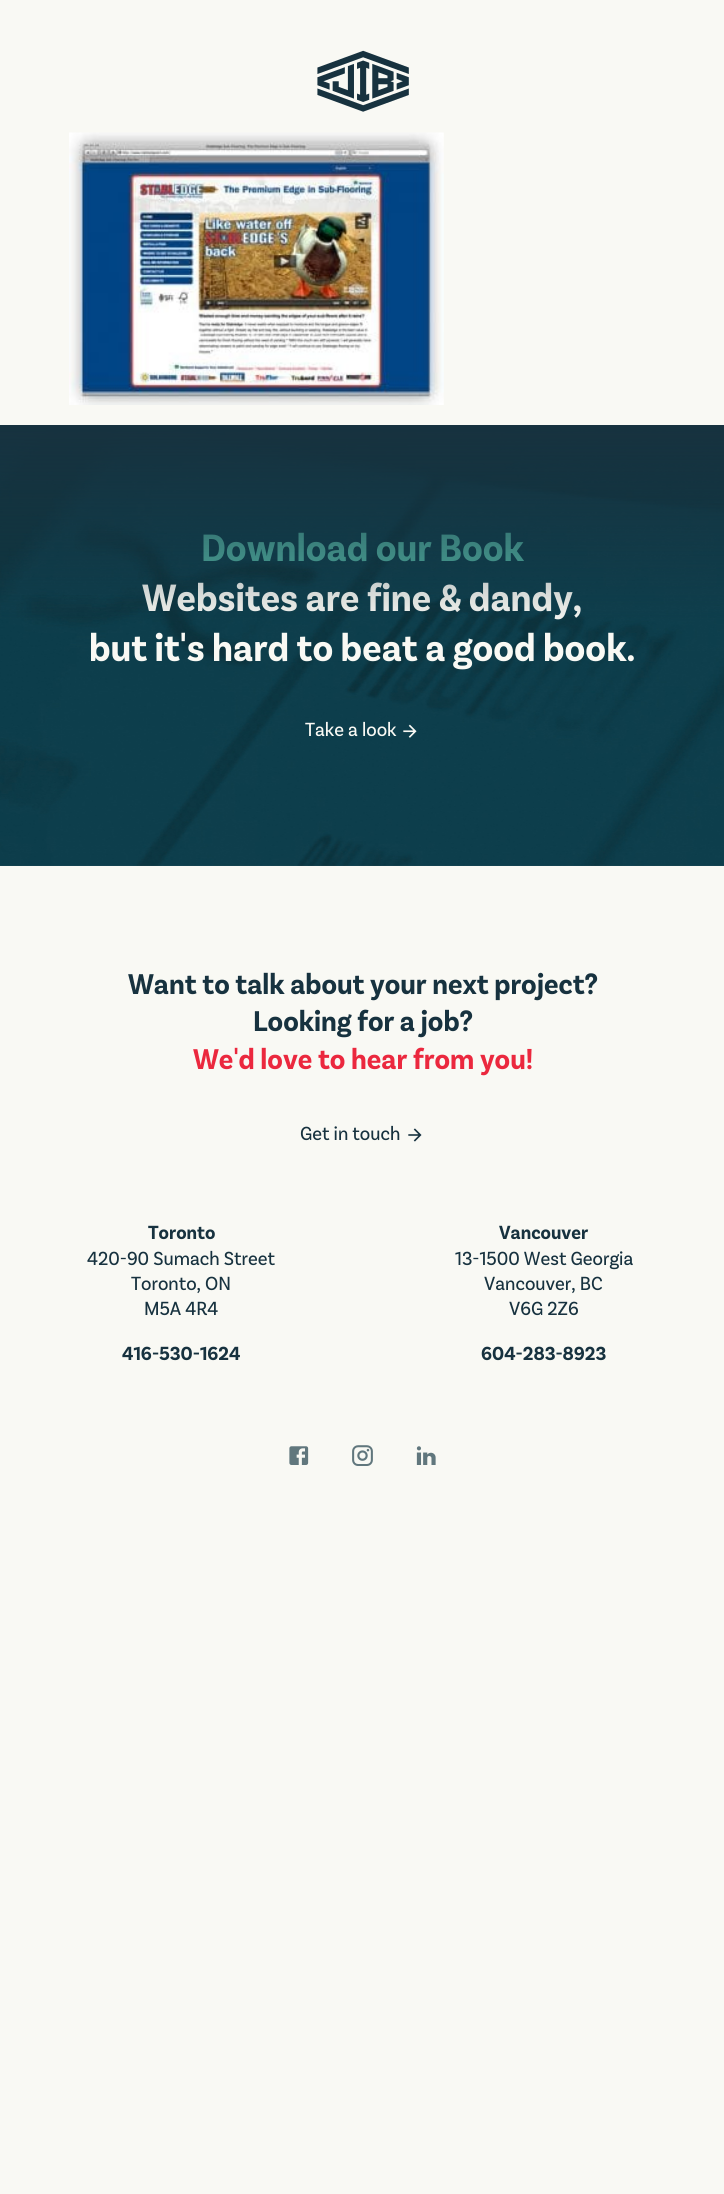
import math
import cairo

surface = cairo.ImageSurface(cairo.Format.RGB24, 724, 2194)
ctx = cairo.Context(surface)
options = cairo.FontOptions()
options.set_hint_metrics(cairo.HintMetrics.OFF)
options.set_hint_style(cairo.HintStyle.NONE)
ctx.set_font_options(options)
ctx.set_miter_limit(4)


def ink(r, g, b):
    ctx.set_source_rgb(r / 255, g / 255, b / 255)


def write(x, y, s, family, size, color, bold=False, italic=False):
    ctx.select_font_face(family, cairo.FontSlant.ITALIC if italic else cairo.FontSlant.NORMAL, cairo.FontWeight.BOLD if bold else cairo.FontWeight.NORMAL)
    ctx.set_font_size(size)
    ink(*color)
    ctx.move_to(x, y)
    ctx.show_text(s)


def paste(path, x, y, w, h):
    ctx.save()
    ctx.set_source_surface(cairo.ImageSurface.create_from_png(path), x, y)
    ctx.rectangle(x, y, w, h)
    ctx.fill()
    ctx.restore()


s1 = dict(family="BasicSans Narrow", size=40, color=(84, 184, 167), bold=True)
s2 = dict(family="BasicSans Narrow", size=40, color=(249, 249, 244), bold=True)
s3 = dict(family="BasicSans Narrow", size=20, color=(249, 249, 244))
s4 = dict(family="BasicSans Narrow", size=30, color=(23, 50, 63), bold=True)
s5 = dict(family="BasicSans Narrow", size=30, color=(235, 40, 62), bold=True)
s6 = dict(family="BasicSans Narrow", size=20, color=(23, 50, 63))
s7 = dict(family="BasicSans Narrow", size=20, color=(23, 50, 63), bold=True)

ink(249, 249, 244)
ctx.paint()
paste("pic1.png", 317, 50, 92, 62)
paste("pic2.png", 69, 132, 375, 273)
paste("pic3.png", 0, 426, 724, 440)
write(201, 561, "Download our Book", **s1)
write(142, 611, "Websites are fine & dandy,", **s2)
gradient = cairo.LinearGradient(363, 425, 363, 625)
gradient.add_color_stop_rgba(0, 0.09, 0.196, 0.247, 1)
gradient.add_color_stop_rgba(1, 0.09, 0.196, 0.247, 0)
ctx.set_source(gradient)
ctx.rectangle(0, 425, 724, 194)
ctx.fill()
write(89, 661, "but it's hard to beat a good book.", **s2)
write(305, 736, "Take a look", **s3)
paste("pic4.png", 403, 724, 14, 14)
write(128, 994, "Want to talk about your next project?", **s4)
write(253, 1031, "Looking for a job?", **s4)
write(193, 1069, "We'd love to hear from you!", **s5)
write(300, 1140, "Get in touch", **s6)
paste("pic5.png", 408, 1128, 14, 14)
write(148, 1239, "Toronto", **s7)
write(87, 1265, "420-90 Sumach Street", **s6)
write(131, 1290, "Toronto, ON", **s6)
write(144, 1315, "M5A 4R4", **s6)
write(122, 1360, "416-530-1624", **s7)
write(499, 1239, "Vancouver", **s7)
write(455, 1265, "13-1500 West Georgia", **s6)
write(484, 1290, "Vancouver, BC", **s6)
write(509, 1315, "V6G 2Z6", **s6)
write(481, 1360, "604-283-8923", **s7)
paste("pic6.png", 289, 1446, 20, 19)
paste("pic7.png", 352, 1445, 21, 21)
paste("pic8.png", 416, 1446, 20, 19)
surface.write_to_png("screenshot.png")
